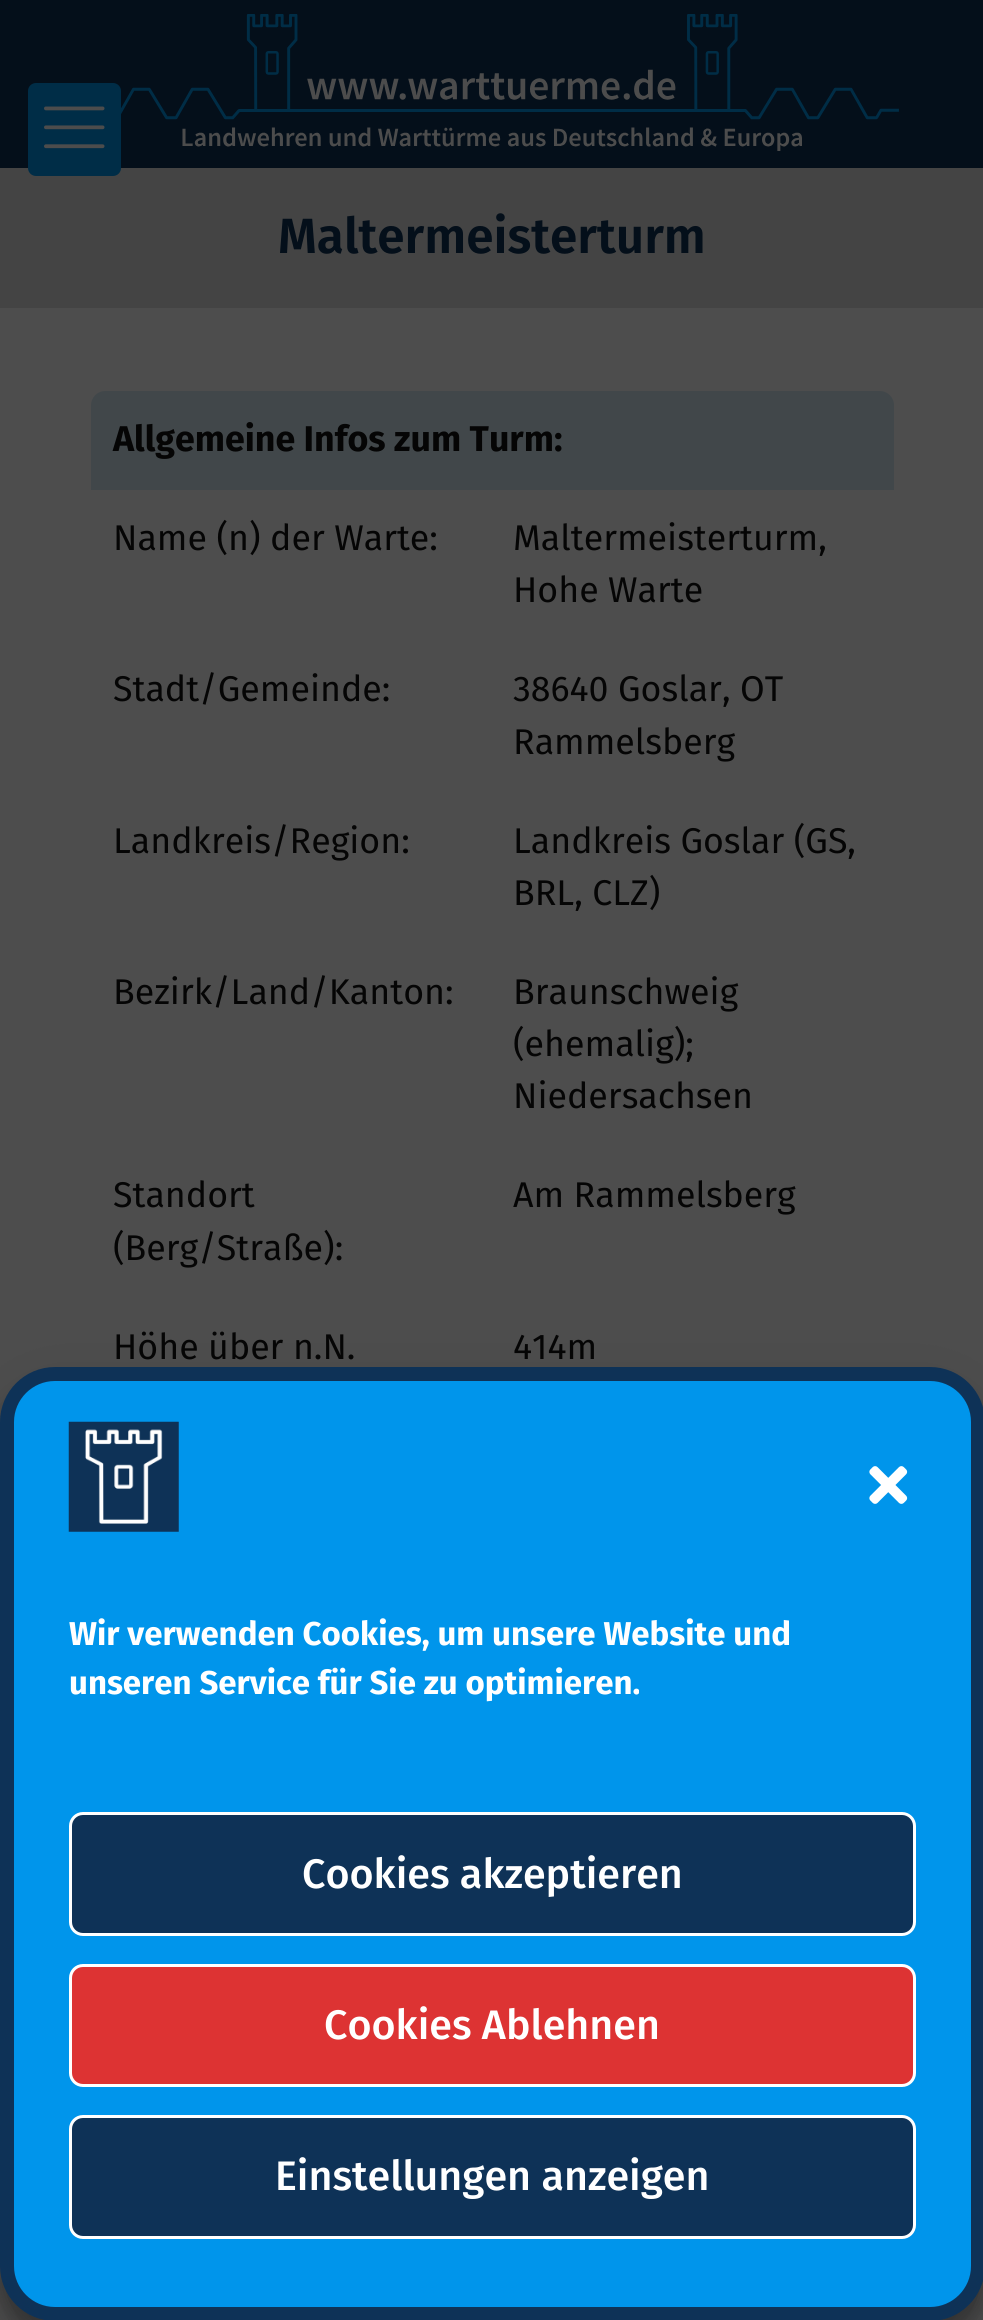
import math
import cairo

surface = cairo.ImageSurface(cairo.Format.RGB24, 983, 2320)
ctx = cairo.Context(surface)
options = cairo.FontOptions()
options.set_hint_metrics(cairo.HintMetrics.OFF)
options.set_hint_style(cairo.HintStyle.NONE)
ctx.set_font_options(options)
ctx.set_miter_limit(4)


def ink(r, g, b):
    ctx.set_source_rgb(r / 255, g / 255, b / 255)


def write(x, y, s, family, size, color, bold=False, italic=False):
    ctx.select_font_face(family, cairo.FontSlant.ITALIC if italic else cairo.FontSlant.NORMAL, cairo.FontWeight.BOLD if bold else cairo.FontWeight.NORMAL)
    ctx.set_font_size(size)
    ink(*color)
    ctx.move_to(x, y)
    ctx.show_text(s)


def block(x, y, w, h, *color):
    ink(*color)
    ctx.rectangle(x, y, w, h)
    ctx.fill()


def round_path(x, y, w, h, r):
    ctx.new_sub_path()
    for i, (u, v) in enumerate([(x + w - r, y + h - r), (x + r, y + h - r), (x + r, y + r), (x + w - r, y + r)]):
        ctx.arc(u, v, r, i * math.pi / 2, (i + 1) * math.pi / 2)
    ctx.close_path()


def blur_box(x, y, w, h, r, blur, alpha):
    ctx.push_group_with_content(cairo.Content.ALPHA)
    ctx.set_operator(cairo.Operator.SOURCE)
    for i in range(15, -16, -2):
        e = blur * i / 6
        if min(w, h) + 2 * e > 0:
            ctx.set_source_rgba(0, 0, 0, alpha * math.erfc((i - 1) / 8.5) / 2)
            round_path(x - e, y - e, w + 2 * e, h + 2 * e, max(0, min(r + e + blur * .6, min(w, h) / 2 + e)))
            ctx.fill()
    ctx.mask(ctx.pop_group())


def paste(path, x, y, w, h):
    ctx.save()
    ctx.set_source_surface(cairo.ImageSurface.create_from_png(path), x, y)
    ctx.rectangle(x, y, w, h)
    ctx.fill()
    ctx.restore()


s1 = dict(family="Fira Sans SemiBold", size=49.5, color=(4, 15, 26))
s2 = dict(family="Fira Sans", size=35.75, color=(5, 5, 5), bold=True)
s3 = dict(family="Fira Sans", size=35.75, color=(5, 5, 5))
s4 = dict(family="Fira Sans", size=33, color=(255, 255, 255), bold=True)
s5 = dict(family="Fira Sans Medium", size=41.25, color=(255, 255, 255))

ink(77, 77, 77)
ctx.paint()
block(0, 0, 983, 168, 4, 15, 26)
block(0, 168, 983, 140, 68, 68, 68)
ink(0, 45, 71)
round_path(28, 83, 93, 93, 8)
ctx.fill()
paste("pic1.png", 44, 106, 61, 43)
paste("pic2.png", 121, 14, 778, 137)
write(278, 253, "Maltermeisterturm", **s1)
ink(65, 71, 74)
ctx.new_path()
ctx.move_to(105, 391)
ctx.line_to(880, 391)
ctx.curve_to(887.5, 391, 894, 397.5, 894, 405)
ctx.line_to(894, 490)
ctx.line_to(91, 490)
ctx.line_to(91, 405)
ctx.curve_to(91, 397.5, 97.5, 391, 105, 391)
ctx.close_path()
ctx.fill()
write(113, 451, "Allgemeine Infos zum Turm:", **s2)
write(113, 550, "Name (n) der Warte:", **s3)
write(513, 550, "Maltermeisterturm,", **s3)
write(513, 602, "Hohe Warte", **s3)
write(113, 701, "Stadt/Gemeinde:", **s3)
write(513, 701, "38640 Goslar, OT", **s3)
write(513, 754, "Rammelsberg", **s3)
write(113, 853, "Landkreis/Region:", **s3)
write(513, 853, "Landkreis Goslar (GS,", **s3)
write(513, 905, "BRL, CLZ)", **s3)
write(113, 1004, "Bezirk/Land/Kanton:", **s3)
write(513, 1004, "Braunschweig", **s3)
write(513, 1056, "(ehemalig);", **s3)
write(513, 1108, "Niedersachsen", **s3)
write(113, 1207, "Standort", **s3)
write(113, 1260, "(Berg/Straße):", **s3)
write(513, 1207, "Am Rammelsberg", **s3)
write(113, 1359, "Höhe über n.N.", **s3)
write(513, 1359, "414m", **s3)
ink(0, 0, 0)
blur_box(0, 1383, 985, 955, 55, 8, 0.23)
blur_box(0, 1394, 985, 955, 55, 27.5, 0.19)
ink(0, 149, 235)
round_path(7, 1374, 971, 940, 48)
ctx.fill_preserve()
ink(14, 50, 87)
ctx.set_line_width(14)
ctx.stroke()
paste("pic3.png", 68, 1421, 111, 111)
paste("pic4.png", 869, 1466, 39, 38)
write(69, 1645, "Wir verwenden Cookies, um unsere Website und", **s4)
write(69, 1694, "unseren Service für Sie zu optimieren.", **s4)
ink(14, 50, 87)
round_path(70.5, 1813.5, 844, 121, 12.5)
ctx.fill_preserve()
ink(255, 255, 255)
ctx.set_line_width(3)
ctx.stroke()
write(302, 1888, "Cookies akzeptieren", **s5)
ink(221, 51, 51)
round_path(70.5, 1965.5, 844, 120, 12.5)
ctx.fill_preserve()
ink(255, 255, 255)
ctx.stroke()
write(324, 2039, "Cookies Ablehnen", **s5)
ink(14, 50, 87)
round_path(70.5, 2116.5, 844, 121, 12.5)
ctx.fill_preserve()
ink(255, 255, 255)
ctx.stroke()
write(275, 2190, "Einstellungen anzeigen", **s5)
surface.write_to_png("screenshot.png")
